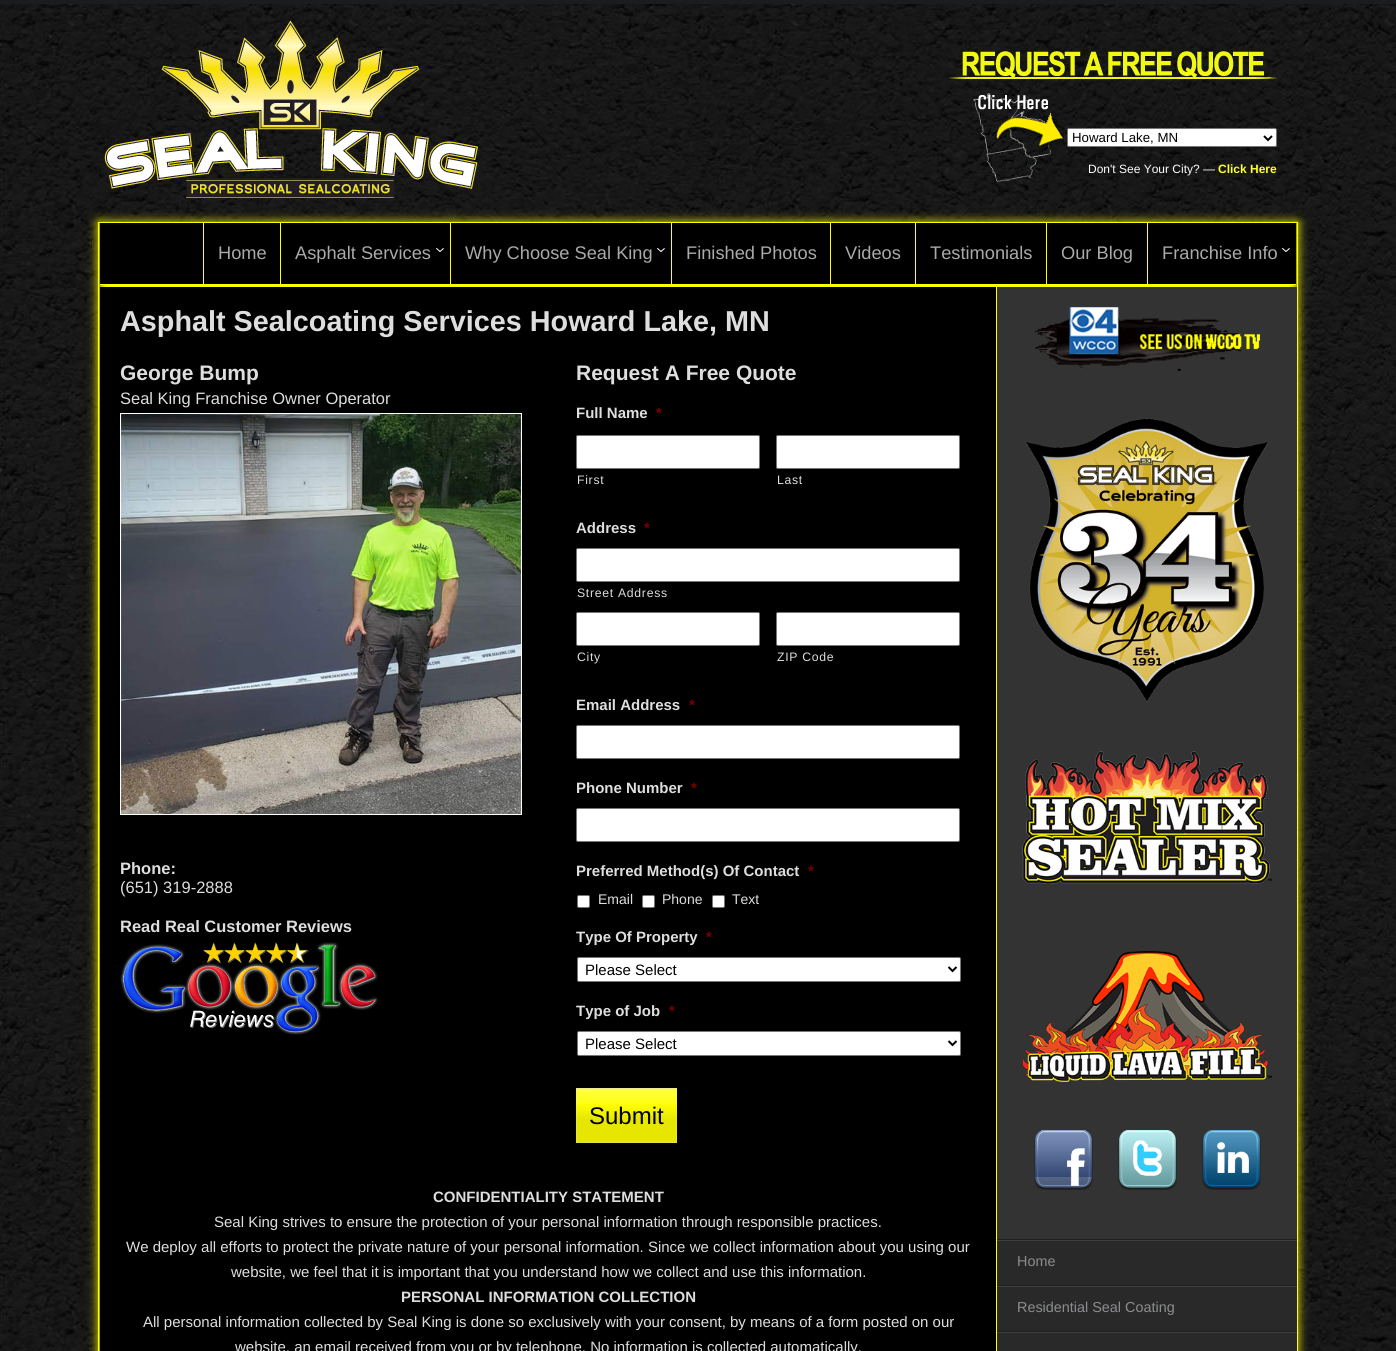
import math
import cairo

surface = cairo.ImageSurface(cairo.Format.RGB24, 1396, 1351)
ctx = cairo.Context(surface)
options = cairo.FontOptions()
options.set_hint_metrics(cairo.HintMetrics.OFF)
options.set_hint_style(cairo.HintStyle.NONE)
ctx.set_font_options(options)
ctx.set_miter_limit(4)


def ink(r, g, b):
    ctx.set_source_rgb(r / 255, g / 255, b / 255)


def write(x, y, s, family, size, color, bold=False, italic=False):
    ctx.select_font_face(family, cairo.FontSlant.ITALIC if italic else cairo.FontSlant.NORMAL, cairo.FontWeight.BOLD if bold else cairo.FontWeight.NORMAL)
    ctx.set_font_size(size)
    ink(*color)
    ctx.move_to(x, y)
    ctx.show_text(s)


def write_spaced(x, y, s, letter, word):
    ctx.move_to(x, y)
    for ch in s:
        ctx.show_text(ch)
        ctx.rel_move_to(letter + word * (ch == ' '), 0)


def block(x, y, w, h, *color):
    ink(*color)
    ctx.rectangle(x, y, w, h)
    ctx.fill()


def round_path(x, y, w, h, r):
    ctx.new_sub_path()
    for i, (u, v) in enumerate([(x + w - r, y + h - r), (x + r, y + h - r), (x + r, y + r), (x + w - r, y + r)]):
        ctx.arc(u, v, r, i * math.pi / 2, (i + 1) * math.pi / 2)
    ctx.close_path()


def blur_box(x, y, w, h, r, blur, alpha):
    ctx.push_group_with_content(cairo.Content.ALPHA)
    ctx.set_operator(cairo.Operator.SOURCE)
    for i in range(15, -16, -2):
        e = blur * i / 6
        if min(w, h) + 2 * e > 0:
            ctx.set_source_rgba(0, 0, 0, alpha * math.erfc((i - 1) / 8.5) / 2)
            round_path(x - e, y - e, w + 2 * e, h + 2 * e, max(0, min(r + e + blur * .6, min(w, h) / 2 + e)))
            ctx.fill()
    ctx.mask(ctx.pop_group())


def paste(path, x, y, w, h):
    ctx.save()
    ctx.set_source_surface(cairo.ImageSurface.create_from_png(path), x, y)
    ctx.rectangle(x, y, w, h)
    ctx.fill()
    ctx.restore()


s1 = dict(family="Liberation Sans", size=13.25, color=(0, 0, 0))
s2 = dict(family="Liberation Sans", size=12, color=(255, 255, 255))
s3 = dict(family="Liberation Sans", size=12, color=(255, 255, 51), bold=True)
s4 = dict(family="Liberation Sans", size=18.25, color=(170, 170, 170))
s5 = dict(family="Liberation Sans", size=28.8, color=(222, 222, 222), bold=True)
s6 = dict(family="Liberation Sans", size=21, color=(222, 222, 222), bold=True)
s7 = dict(family="Liberation Sans", size=16.5, color=(222, 222, 222))
s8 = dict(family="Liberation Sans", size=16.5, color=(222, 222, 222), bold=True)
s9 = dict(family="Liberation Sans", size=15, color=(222, 222, 222), bold=True)
s10 = dict(family="Liberation Sans", size=15, color=(121, 0, 0), bold=True)
s11 = dict(family="Liberation Sans", size=14, color=(222, 222, 222))
s12 = dict(family="Liberation Sans", size=15, color=(0, 0, 0))
s13 = dict(family="Liberation Sans", size=24, color=(0, 0, 0))
s14 = dict(family="Liberation Sans", size=15, color=(222, 222, 222))
s15 = dict(family="Liberation Sans", size=14.4, color=(140, 141, 143))

ink(255, 255, 255)
ctx.paint()
paste("pic1.png", 0, 4, 1396, 1347)
block(0, 0, 1396, 4, 27, 28, 29)
paste("pic2.png", 104, 20, 374, 178)
paste("pic3.png", 949, 51, 328, 28)
paste("pic4.png", 973, 93, 91, 89)
ink(255, 255, 255)
round_path(1067.5, 128.5, 209, 18, 1.5)
ctx.fill_preserve()
ink(118, 118, 118)
ctx.set_line_width(1)
ctx.stroke()
ctx.new_path()
ctx.move_to(1264, 136)
ctx.line_to(1268, 140)
ctx.line_to(1272, 136)
ink(0, 0, 0)
ctx.set_line_width(2)
ctx.stroke()
write(1072, 142, "Howard Lake, MN", **s1)
write(1088, 173, "Don't See Your City? —", **s2)
write(1218, 173, "Click Here", **s3)
ink(255, 255, 0)
blur_box(98, 222, 1200, 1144, 0, 5, 1)
ctx.rectangle(98.5, 222.5, 1199, 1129)
ink(255, 255, 0)
ctx.set_line_width(1)
ctx.stroke()
block(100, 223, 1196, 61, 0, 0, 0)
block(100, 284, 1196, 1, 255, 255, 0)
block(203, 223, 1, 61, 255, 255, 0)
write(218, 259, "Home", **s4)
block(280, 223, 1, 61, 255, 255, 0)
write(295, 259, "Asphalt Services", **s4)
paste("pic5.png", 436, 248, 8, 4)
block(450, 223, 1, 61, 255, 255, 0)
write(465, 259, "Why Choose Seal King", **s4)
paste("pic5.png", 657, 248, 8, 4)
block(671, 223, 1, 61, 255, 255, 0)
write(686, 259, "Finished Photos", **s4)
block(830, 223, 1, 61, 255, 255, 0)
write(845, 259, "Videos", **s4)
block(915, 223, 1, 61, 255, 255, 0)
write(930, 259, "Testimonials", **s4)
block(1046, 223, 1, 61, 255, 255, 0)
write(1061, 259, "Our Blog", **s4)
block(1147, 223, 1, 61, 255, 255, 0)
write(1162, 259, "Franchise Info", **s4)
paste("pic5.png", 1282, 248, 8, 4)
block(100, 287, 896, 1064, 0, 0, 0)
write(120, 331, "Asphalt Sealcoating Services Howard Lake, MN", **s5)
write(120, 380, "George Bump", **s6)
write(120, 404, "Seal King Franchise Owner Operator", **s7)
ctx.rectangle(120.5, 413.5, 401, 401)
ink(255, 255, 255)
ctx.stroke()
paste("pic6.png", 121, 414, 400, 400)
write(120, 874, "Phone:", **s8)
write(120, 893, "(651) 319-2888", **s7)
write(120, 932, "Read Real Customer Reviews", **s8)
paste("pic7.png", 120, 942, 258, 93)
write(576, 380, "Request A Free Quote", **s6)
write(576, 418, "Full Name", **s9)
write(656, 418, "*", **s10)
ink(255, 255, 255)
round_path(576.5, 435.5, 183, 33, 1.5)
ctx.fill_preserve()
ink(118, 118, 118)
ctx.stroke()
ctx.select_font_face("Liberation Sans")
ctx.set_font_size(12.25)
ink(222, 222, 222)
write_spaced(577, 484, "First", 0.7, 0)
ink(255, 255, 255)
round_path(776.5, 435.5, 183, 33, 1.5)
ctx.fill_preserve()
ink(118, 118, 118)
ctx.stroke()
ink(222, 222, 222)
write_spaced(777, 484, "Last", 0.7, 0)
write(576, 533, "Address", **s9)
write(644, 533, "*", **s10)
ink(255, 255, 255)
round_path(576.5, 548.5, 383, 33, 1.5)
ctx.fill_preserve()
ink(118, 118, 118)
ctx.stroke()
ctx.select_font_face("Liberation Sans")
ctx.set_font_size(12.25)
ink(222, 222, 222)
write_spaced(577, 597, "Street Address", 0.7, 0)
ink(255, 255, 255)
round_path(576.5, 612.5, 183, 33, 1.5)
ctx.fill_preserve()
ink(118, 118, 118)
ctx.stroke()
ink(222, 222, 222)
write_spaced(577, 661, "City", 0.7, 0)
ink(255, 255, 255)
round_path(776.5, 612.5, 183, 33, 1.5)
ctx.fill_preserve()
ink(118, 118, 118)
ctx.stroke()
ink(222, 222, 222)
write_spaced(777, 661, "ZIP Code", 0.7, 0)
write(576, 710, "Email Address", **s9)
write(689, 710, "*", **s10)
ink(255, 255, 255)
round_path(576.5, 725.5, 383, 33, 1.5)
ctx.fill_preserve()
ink(118, 118, 118)
ctx.stroke()
write(576, 793, "Phone Number", **s9)
write(691, 793, "*", **s10)
ink(255, 255, 255)
round_path(576.5, 808.5, 383, 33, 1.5)
ctx.fill_preserve()
ink(118, 118, 118)
ctx.stroke()
write(576, 876, "Preferred Method(s) Of Contact", **s9)
write(808, 876, "*", **s10)
ink(255, 255, 255)
round_path(577.5, 895.5, 12, 12, 1.5)
ctx.fill_preserve()
ink(118, 118, 118)
ctx.stroke()
write(598, 904, "Email", **s11)
ink(255, 255, 255)
round_path(642.5, 895.5, 12, 12, 1.5)
ctx.fill_preserve()
ink(118, 118, 118)
ctx.stroke()
write(662, 904, "Phone", **s11)
ink(255, 255, 255)
round_path(712.5, 895.5, 12, 12, 1.5)
ctx.fill_preserve()
ink(118, 118, 118)
ctx.stroke()
write(732, 904, "Text", **s11)
write(576, 942, "Type Of Property", **s9)
write(706, 942, "*", **s10)
ink(255, 255, 255)
round_path(577.5, 957.5, 383, 24, 1.5)
ctx.fill_preserve()
ink(118, 118, 118)
ctx.stroke()
ctx.new_path()
ctx.move_to(948.5, 967)
ctx.line_to(952.5, 971)
ctx.line_to(956.5, 967)
ink(0, 0, 0)
ctx.set_line_width(2)
ctx.stroke()
write(585, 975, "Please Select", **s12)
write(576, 1016, "Type of Job", **s9)
write(669, 1016, "*", **s10)
ink(255, 255, 255)
round_path(577.5, 1031.5, 383, 24, 1.5)
ctx.fill_preserve()
ink(118, 118, 118)
ctx.set_line_width(1)
ctx.stroke()
ctx.new_path()
ctx.move_to(948.5, 1041)
ctx.line_to(952.5, 1045)
ctx.line_to(956.5, 1041)
ink(0, 0, 0)
ctx.set_line_width(2)
ctx.stroke()
write(585, 1049, "Please Select", **s12)
block(576, 1088, 101, 55, 255, 255, 0)
paste("pic8.png", 576, 1089, 101, 54)
ink(237, 237, 135)
ctx.new_path()
ctx.move_to(576, 1088)
ctx.line_to(677, 1088)
ctx.line_to(676, 1089)
ctx.line_to(577, 1089)
ctx.close_path()
ctx.fill()
ctx.set_source_rgba(0.882, 0.882, 0.882, 0.3)
ctx.new_path()
ctx.move_to(677, 1088)
ctx.line_to(677, 1143)
ctx.line_to(676, 1142)
ctx.line_to(676, 1089)
ctx.close_path()
ctx.fill()
ctx.new_path()
ctx.move_to(677, 1143)
ctx.line_to(576, 1143)
ctx.line_to(577, 1142)
ctx.line_to(676, 1142)
ctx.close_path()
ctx.fill()
ctx.new_path()
ctx.move_to(576, 1143)
ctx.line_to(576, 1088)
ctx.line_to(577, 1089)
ctx.line_to(577, 1142)
ctx.close_path()
ctx.fill()
write(589, 1124, "Submit", **s13)
write(433, 1202, "CONFIDENTIALITY STATEMENT", **s9)
write(214, 1227, "Seal King strives to ensure the protection of your personal information through responsible practices.", **s14)
write(126, 1252, "We deploy all efforts to protect the private nature of your personal information. Since we collect information about you using our", **s14)
write(231, 1277, "website, we feel that it is important that you understand how we collect and use this information.", **s14)
write(401, 1302, "PERSONAL INFORMATION COLLECTION", **s9)
write(143, 1327, "All personal information collected by Seal King is done so exclusively with your consent, by means of a form posted on our", **s14)
write(235, 1352, "website, an email received from you or by telephone. No information is collected automatically.", **s14)
block(997, 287, 300, 952, 51, 51, 51)
paste("pic9.png", 1035, 307, 225, 64)
paste("pic10.png", 1025, 418, 244, 284)
paste("pic11.png", 1022, 751, 250, 133)
paste("pic12.png", 1022, 951, 250, 131)
paste("pic13.png", 1034, 1130, 59, 60)
paste("pic14.png", 1118, 1130, 59, 60)
paste("pic15.png", 1202, 1130, 59, 60)
block(997, 1239, 300, 112, 41, 41, 41)
paste("pic16.png", 997, 1239, 300, 2)
write(1017, 1266, "Home", **s15)
paste("pic16.png", 997, 1285, 300, 2)
write(1017, 1312, "Residential Seal Coating", **s15)
paste("pic16.png", 997, 1331, 300, 2)
surface.write_to_png("screenshot.png")
